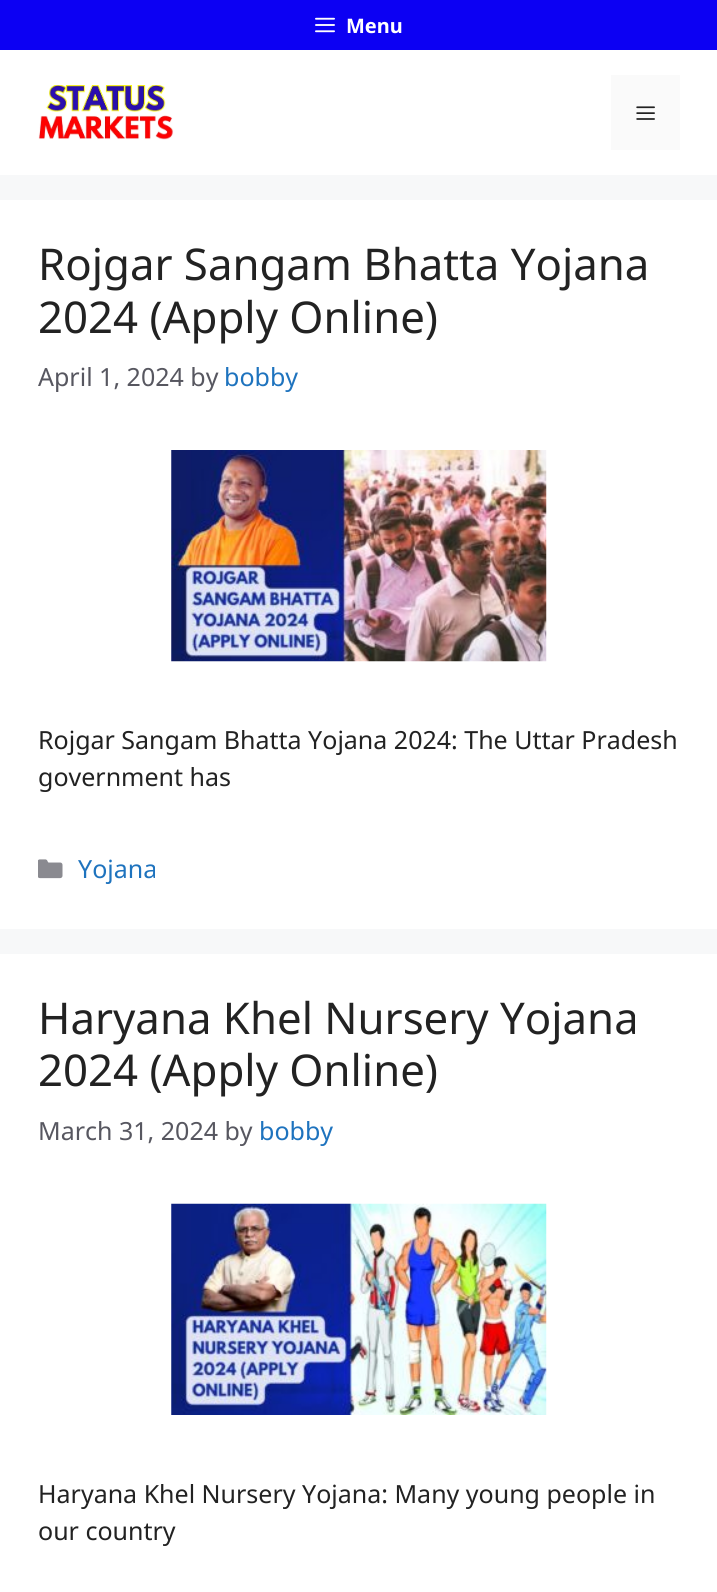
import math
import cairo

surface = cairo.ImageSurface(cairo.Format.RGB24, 717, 1592)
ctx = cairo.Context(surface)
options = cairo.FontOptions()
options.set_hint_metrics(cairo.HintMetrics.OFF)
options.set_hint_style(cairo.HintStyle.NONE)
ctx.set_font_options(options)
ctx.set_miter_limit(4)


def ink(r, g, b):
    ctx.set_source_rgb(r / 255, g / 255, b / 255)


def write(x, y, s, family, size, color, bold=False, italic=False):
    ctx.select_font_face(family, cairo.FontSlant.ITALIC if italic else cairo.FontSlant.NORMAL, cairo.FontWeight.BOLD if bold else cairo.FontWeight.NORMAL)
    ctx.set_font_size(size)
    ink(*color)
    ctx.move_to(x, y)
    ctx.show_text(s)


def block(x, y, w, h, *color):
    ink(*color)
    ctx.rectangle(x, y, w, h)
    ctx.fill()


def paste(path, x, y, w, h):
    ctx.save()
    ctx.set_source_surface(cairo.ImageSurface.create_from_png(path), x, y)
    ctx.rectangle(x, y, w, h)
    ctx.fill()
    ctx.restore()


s1 = dict(family="Noto Sans", size=20, color=(255, 255, 255), bold=True)
s2 = dict(family="Noto Sans", size=43.75, color=(34, 34, 34))
s3 = dict(family="Noto Sans", size=25, color=(87, 87, 96))
s4 = dict(family="Noto Sans", size=25, color=(30, 115, 190))
s5 = dict(family="Noto Sans", size=25, color=(34, 34, 34))

ink(247, 248, 249)
ctx.paint()
block(0, 0, 717, 50, 12, 0, 243)
paste("pic1.png", 315, 17, 20, 16)
write(346, 33, "Menu", **s1)
block(0, 50, 717, 125, 255, 255, 255)
paste("pic2.png", 38, 85, 136, 55)
block(611, 75, 69, 75, 250, 250, 250)
paste("pic3.png", 636, 106, 19, 14)
block(0, 200, 717, 729, 255, 255, 255)
write(38, 280, "Rojgar Sangam Bhatta Yojana", **s2)
write(38, 333, "2024 (Apply Online)", **s2)
write(38, 386, "April 1, 2024 by", **s3)
write(224, 386, "bobby", **s4)
paste("pic4.png", 171, 450, 376, 212)
write(38, 749, "Rojgar Sangam Bhatta Yojana 2024: The Uttar Pradesh", **s5)
write(38, 786, "government has", **s5)
paste("pic5.png", 38, 859, 25, 20)
write(78, 878, "Yojana", **s4)
block(0, 954, 717, 638, 255, 255, 255)
write(38, 1034, "Haryana Khel Nursery Yojana", **s2)
write(38, 1086, "2024 (Apply Online)", **s2)
write(38, 1140, "March 31, 2024 by", **s3)
write(259, 1140, "bobby", **s4)
paste("pic6.png", 171, 1203, 376, 212)
write(38, 1503, "Haryana Khel Nursery Yojana: Many young people in", **s5)
write(38, 1540, "our country", **s5)
surface.write_to_png("screenshot.png")
